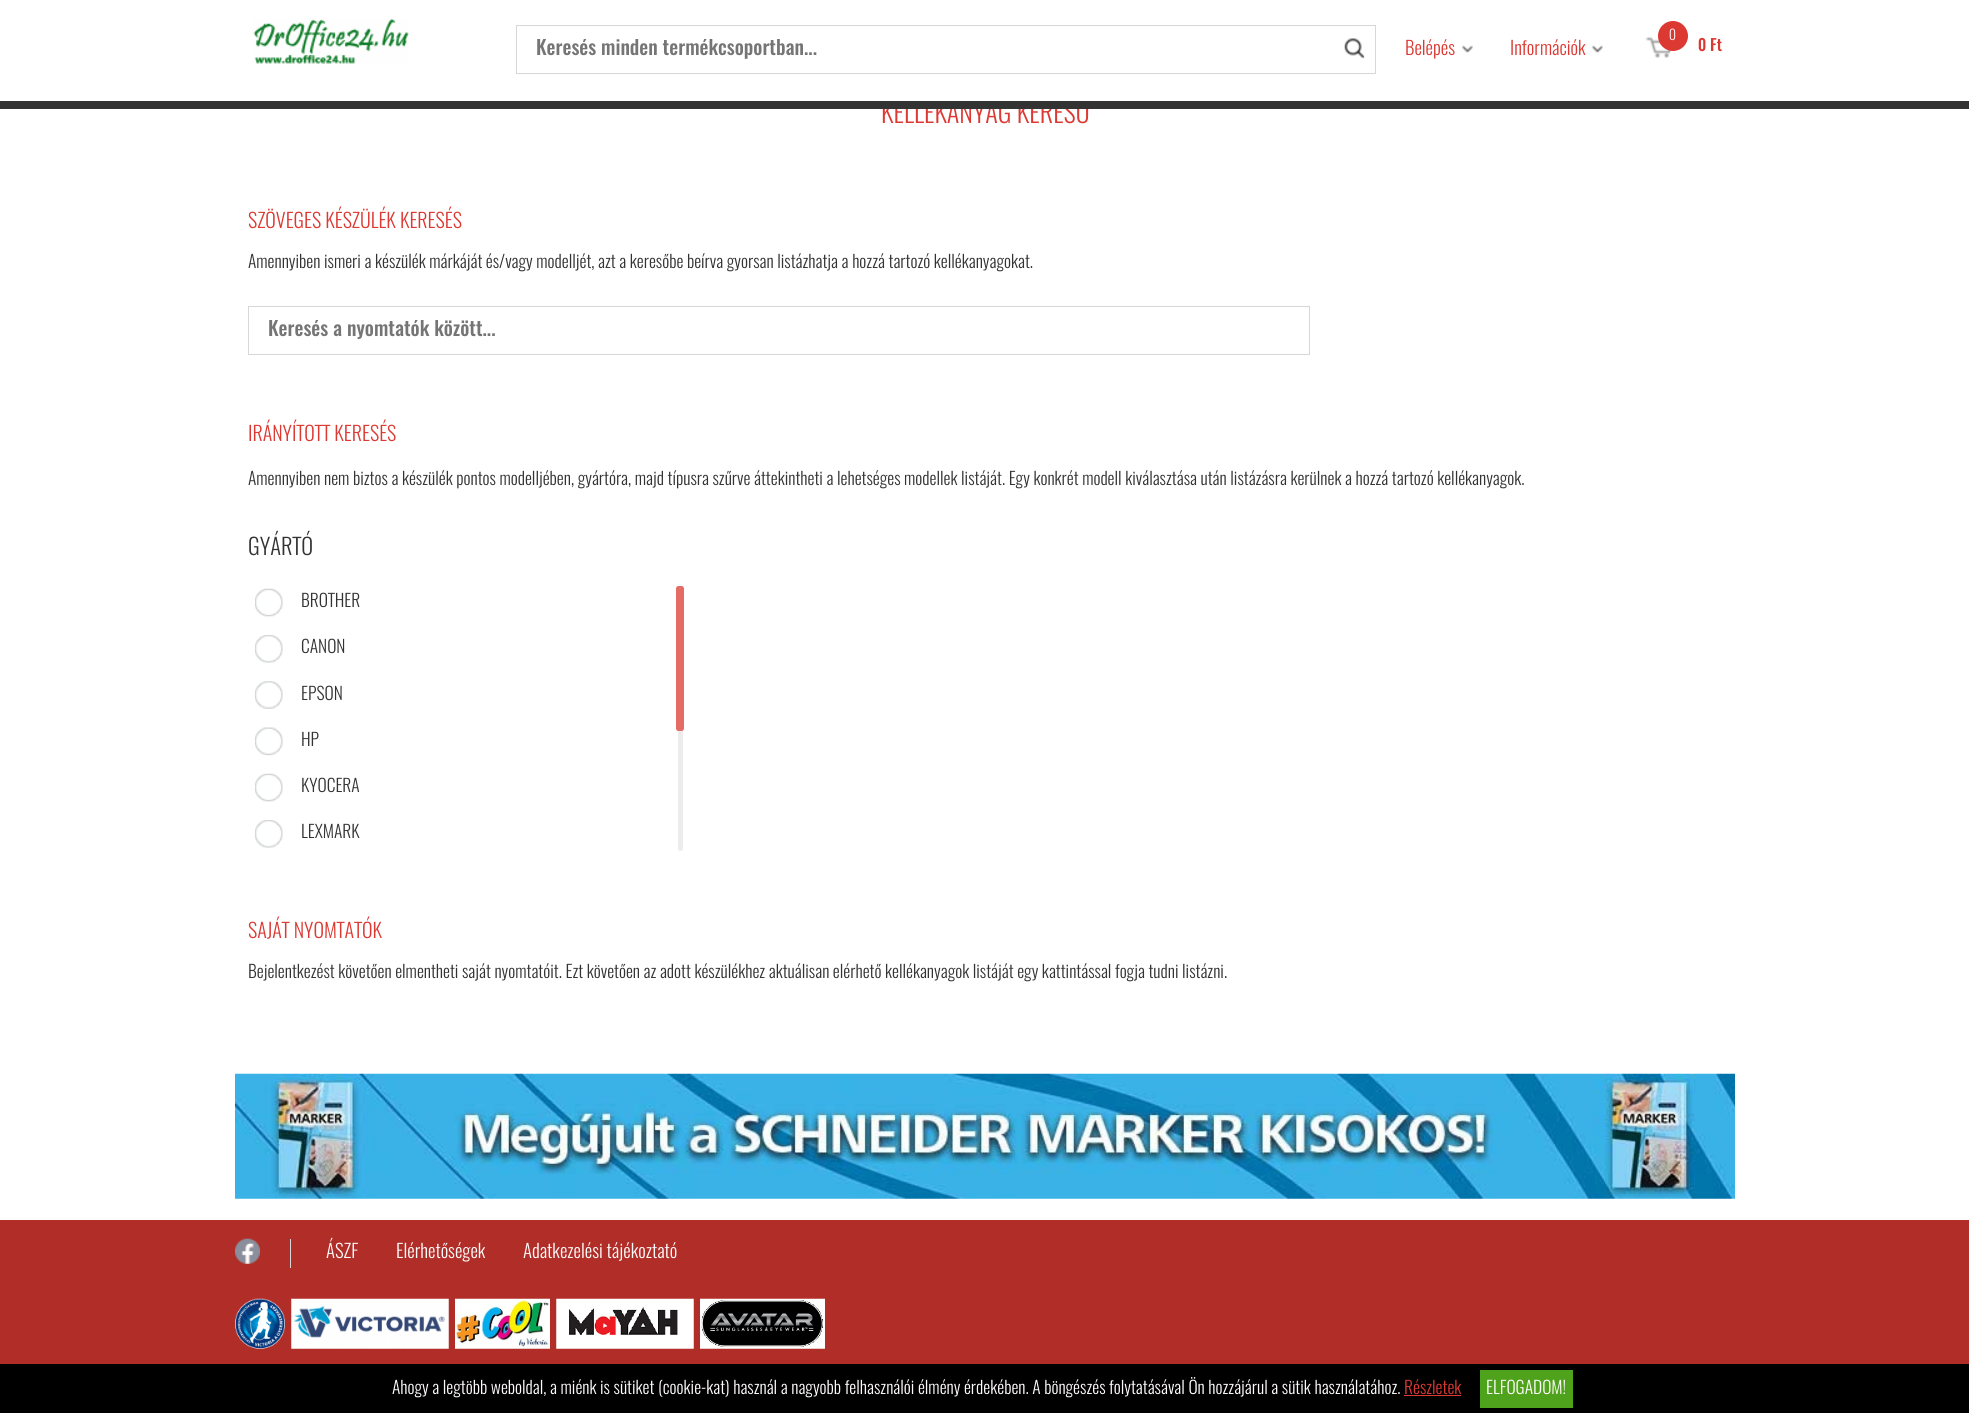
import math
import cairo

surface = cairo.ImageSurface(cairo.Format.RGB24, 1969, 1413)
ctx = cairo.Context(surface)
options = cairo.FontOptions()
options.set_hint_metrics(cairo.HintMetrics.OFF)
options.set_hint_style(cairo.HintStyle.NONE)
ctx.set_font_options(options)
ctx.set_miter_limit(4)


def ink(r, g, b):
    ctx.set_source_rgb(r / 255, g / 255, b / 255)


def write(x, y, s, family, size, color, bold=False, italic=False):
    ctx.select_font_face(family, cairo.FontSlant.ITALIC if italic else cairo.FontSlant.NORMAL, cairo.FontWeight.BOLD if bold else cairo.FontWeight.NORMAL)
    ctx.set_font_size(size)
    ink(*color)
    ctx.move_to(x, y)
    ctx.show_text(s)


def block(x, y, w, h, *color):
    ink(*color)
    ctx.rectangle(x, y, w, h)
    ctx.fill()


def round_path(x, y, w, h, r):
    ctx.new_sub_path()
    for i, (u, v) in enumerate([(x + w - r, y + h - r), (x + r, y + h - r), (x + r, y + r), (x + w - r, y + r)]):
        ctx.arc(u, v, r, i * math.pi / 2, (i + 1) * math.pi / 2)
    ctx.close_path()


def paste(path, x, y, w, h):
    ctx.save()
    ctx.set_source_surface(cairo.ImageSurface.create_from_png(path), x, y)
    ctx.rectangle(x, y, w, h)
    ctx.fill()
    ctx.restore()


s1 = dict(family="Oswald Light", size=26.25, color=(220, 57, 50))
s2 = dict(family="Oswald Medium", size=20, color=(117, 117, 117))
s3 = dict(family="Oswald Light", size=18.75, color=(220, 57, 50))
s4 = dict(family="Oswald Light", size=14, color=(254, 251, 251))
s5 = dict(family="Oswald Medium", size=16, color=(220, 57, 50))
s6 = dict(family="Oswald Light", size=20, color=(220, 57, 50))
s7 = dict(family="Oswald Light", size=17.5, color=(51, 51, 51))
s8 = dict(family="Oswald Light", size=22.5, color=(51, 51, 51))
s9 = dict(family="Oswald Light", size=18.75, color=(254, 251, 251))
s10 = dict(family="Oswald Light", size=17.5, color=(254, 251, 251))
s11 = dict(family="Oswald Light", size=17.5, color=(220, 57, 50))

ink(255, 255, 255)
ctx.paint()
write(881, 123, "KELLÉKANYAG KERESŐ", **s1)
block(929, 94, 158, 6, 255, 255, 255)
block(0, 101, 1969, 8, 51, 51, 51)
paste("pic1.png", 253, 18, 156, 46)
ctx.rectangle(516.5, 25.5, 859, 48)
ink(215, 215, 215)
ctx.set_line_width(1)
ctx.stroke()
ctx.save()
ctx.rectangle(536, 39, 789, 20)
ctx.clip()
write(536, 55, "Keresés minden termékcsoportban...", **s2)
ctx.restore()
paste("pic2.png", 1344, 38, 21, 21)
write(1405, 55, "Belépés", **s3)
paste("pic3.png", 1461, 45, 12, 8)
write(1510, 55, "Információk", **s3)
paste("pic4.png", 1591, 45, 12, 8)
paste("pic5.png", 1645, 37, 27, 21)
ctx.arc(1673, 36, 15, 0, 2 * math.pi)
ctx.fill()
write(1669, 40, "0", **s4)
write(1698, 51, "0 Ft", **s5)
write(248, 228, "SZÖVEGES KÉSZÜLÉK KERESÉS", **s6)
write(248, 268, "Amennyiben ismeri a készülék márkáját és/vagy modelljét, azt a keresőbe beírva gyorsan listázhatja a hozzá tartozó kellékanyagokat.", **s7)
ctx.rectangle(248.5, 306.5, 1061, 48)
ink(215, 215, 215)
ctx.stroke()
ctx.save()
ctx.rectangle(268, 320, 1022, 20)
ctx.clip()
write(268, 336, "Keresés a nyomtatók között...", **s2)
ctx.restore()
write(248, 441, "IRÁNYÍTOTT KERESÉS", **s6)
write(248, 485, "Amennyiben nem biztos a készülék pontos modelljében, gyártóra, majd típusra szűrve áttekintheti a lehetséges modellek listáját. Egy konkrét modell kiválasztása után listázásra kerülnek a hozzá tartozó kellékanyagok.", **s7)
write(248, 555, "GYÁRTÓ", **s8)
paste("pic6.png", 255, 588, 28, 29)
write(301, 607, "BROTHER", **s7)
paste("pic7.png", 255, 635, 28, 28)
write(301, 653, "CANON", **s7)
paste("pic8.png", 255, 681, 28, 28)
write(301, 700, "EPSON", **s7)
paste("pic9.png", 255, 727, 28, 29)
write(301, 746, "HP", **s7)
paste("pic6.png", 255, 773, 28, 29)
write(301, 792, "KYOCERA", **s7)
paste("pic7.png", 255, 820, 28, 28)
write(301, 838, "LEXMARK", **s7)
ink(236, 236, 236)
round_path(678, 586, 5, 265, 2.5)
ctx.fill()
ink(229, 107, 101)
round_path(676, 586, 8, 145, 2.5)
ctx.fill()
write(248, 938, "SAJÁT NYOMTATÓK", **s6)
write(248, 978, "Bejelentkezést követően elmentheti saját nyomtatóit. Ezt követően az adott készülékhez aktuálisan elérhető kellékanyagok listáját egy kattintással fogja tudni listázni.", **s7)
paste("pic10.png", 235, 1073, 1500, 126)
block(0, 1220, 1969, 144, 176, 45, 40)
block(290, 1239, 1, 29, 215, 215, 215)
paste("pic11.png", 235, 1238, 25, 26)
write(326, 1258, "ÁSZF", **s9)
write(396, 1258, "Elérhetőségek", **s9)
write(523, 1258, "Adatkezelési tájékoztató", **s9)
paste("pic12.png", 235, 1298, 50, 51)
paste("pic13.png", 291, 1298, 158, 51)
paste("pic14.png", 455, 1298, 95, 51)
paste("pic15.png", 556, 1298, 138, 51)
paste("pic16.png", 700, 1298, 125, 51)
block(0, 1364, 1969, 49, 0, 0, 0)
write(392, 1394, "Ahogy a legtöbb weboldal, a miénk is sütiket (cookie-kat) használ a nagyobb felhasználói élmény érdekében. A böngészés folytatásával Ön hozzájárul a sütik használatához.", **s10)
write(1404, 1394, "Részletek", **s11)
block(1404, 1395, 57, 1, 220, 57, 50)
block(1480, 1370, 93, 38, 79, 163, 28)
write(1486, 1394, "ELFOGADOM!", **s10)
surface.write_to_png("screenshot.png")
